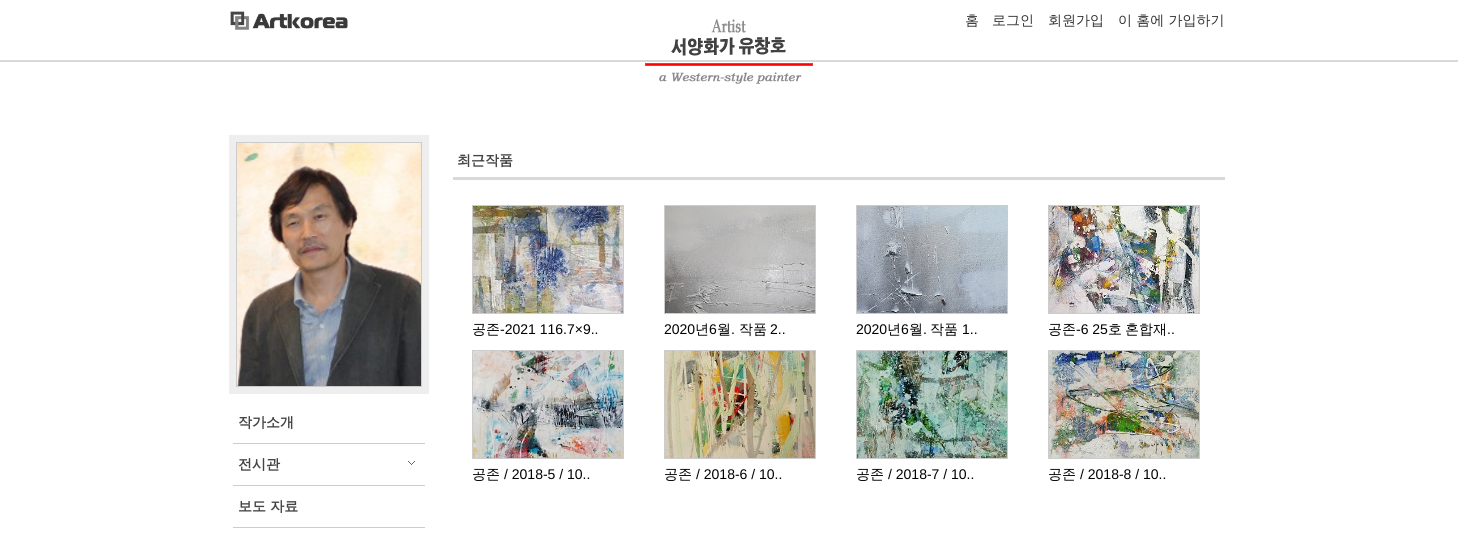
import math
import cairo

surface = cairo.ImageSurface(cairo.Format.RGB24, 1458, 533)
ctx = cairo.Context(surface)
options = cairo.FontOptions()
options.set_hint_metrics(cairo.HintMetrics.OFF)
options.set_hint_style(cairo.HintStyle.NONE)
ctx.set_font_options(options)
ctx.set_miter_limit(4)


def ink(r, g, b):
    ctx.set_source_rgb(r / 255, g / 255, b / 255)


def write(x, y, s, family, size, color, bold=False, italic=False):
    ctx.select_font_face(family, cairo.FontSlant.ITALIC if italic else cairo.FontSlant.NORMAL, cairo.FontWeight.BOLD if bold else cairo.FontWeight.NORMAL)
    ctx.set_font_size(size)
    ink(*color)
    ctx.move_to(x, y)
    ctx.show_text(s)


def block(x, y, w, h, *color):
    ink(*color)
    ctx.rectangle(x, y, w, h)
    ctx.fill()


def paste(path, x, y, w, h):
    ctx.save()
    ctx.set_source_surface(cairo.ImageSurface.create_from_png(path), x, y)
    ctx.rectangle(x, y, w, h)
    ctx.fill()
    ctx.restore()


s1 = dict(family="WenQuanYi Zen Hei Medium", size=14, color=(51, 51, 51))
s2 = dict(family="WenQuanYi Zen Hei", size=14, color=(68, 68, 68), bold=True)
s3 = dict(family="WenQuanYi Zen Hei Medium", size=14, color=(0, 0, 0))
s4 = dict(family="Liberation Sans", size=14, color=(0, 0, 0))

ink(255, 255, 255)
ctx.paint()
paste("pic1.png", 230, 11, 118, 19)
paste("pic2.png", 645, 19, 168, 65)
write(965, 25, "홈", **s1)
write(992, 25, "로그인", **s1)
write(1048, 25, "회원가입", **s1)
write(1118, 25, "이 홈에 가입하기", **s1)
block(0, 60, 1458, 2, 217, 217, 217)
block(229, 135, 200, 259, 238, 238, 238)
ctx.rectangle(236.5, 142.5, 185, 244)
ink(204, 204, 204)
ctx.set_line_width(1)
ctx.stroke()
paste("pic3.png", 237, 143, 184, 243)
block(233, 443, 192, 1, 204, 204, 204)
write(238, 427, "작가소개", **s2)
block(233, 485, 192, 1, 204, 204, 204)
write(238, 469, "전시관", **s2)
paste("pic4.png", 408, 461, 7, 4)
block(233, 527, 192, 1, 204, 204, 204)
write(238, 511, "보도 자료", **s2)
block(453, 177, 772, 3, 217, 217, 217)
write(457, 165, "최근작품", **s2)
ctx.rectangle(472.5, 205.5, 151, 108)
ink(204, 204, 204)
ctx.stroke()
paste("pic5.png", 473, 206, 150, 107)
write(472, 334, "공존", **s3)
write(500, 334, "-2021 116.7×9..", **s4)
ctx.rectangle(664.5, 205.5, 151, 108)
ink(204, 204, 204)
ctx.stroke()
paste("pic6.png", 665, 206, 150, 107)
write(664, 334, "2020", **s4)
write(695, 334, "년", **s3)
write(709, 334, "6", **s4)
write(717, 334, "월", **s3)
write(731, 334, ".", **s4)
write(739, 334, "작품", **s3)
write(770, 334, "2..", **s4)
ctx.rectangle(856.5, 205.5, 151, 108)
ink(204, 204, 204)
ctx.stroke()
paste("pic7.png", 857, 206, 150, 107)
write(856, 334, "2020", **s4)
write(887, 334, "년", **s3)
write(901, 334, "6", **s4)
write(909, 334, "월", **s3)
write(923, 334, ".", **s4)
write(930, 334, "작품", **s3)
write(962, 334, "1..", **s4)
ctx.rectangle(1048.5, 205.5, 151, 108)
ink(204, 204, 204)
ctx.stroke()
paste("pic8.png", 1049, 206, 150, 107)
write(1048, 334, "공존", **s3)
write(1076, 334, "-6 25", **s4)
write(1108, 334, "호", **s3)
write(1125, 334, "혼합재", **s3)
write(1167, 334, "..", **s4)
ctx.rectangle(472.5, 350.5, 151, 108)
ink(204, 204, 204)
ctx.stroke()
paste("pic9.png", 473, 351, 150, 107)
write(472, 479, "공존", **s3)
write(504, 479, "/ 2018-5 / 10..", **s4)
ctx.rectangle(664.5, 350.5, 151, 108)
ink(204, 204, 204)
ctx.stroke()
paste("pic10.png", 665, 351, 150, 107)
write(664, 479, "공존", **s3)
write(696, 479, "/ 2018-6 / 10..", **s4)
ctx.rectangle(856.5, 350.5, 151, 108)
ink(204, 204, 204)
ctx.stroke()
paste("pic11.png", 857, 351, 150, 107)
write(856, 479, "공존", **s3)
write(888, 479, "/ 2018-7 / 10..", **s4)
ctx.rectangle(1048.5, 350.5, 151, 108)
ink(204, 204, 204)
ctx.stroke()
paste("pic12.png", 1049, 351, 150, 107)
write(1048, 479, "공존", **s3)
write(1080, 479, "/ 2018-8 / 10..", **s4)
surface.write_to_png("screenshot.png")
